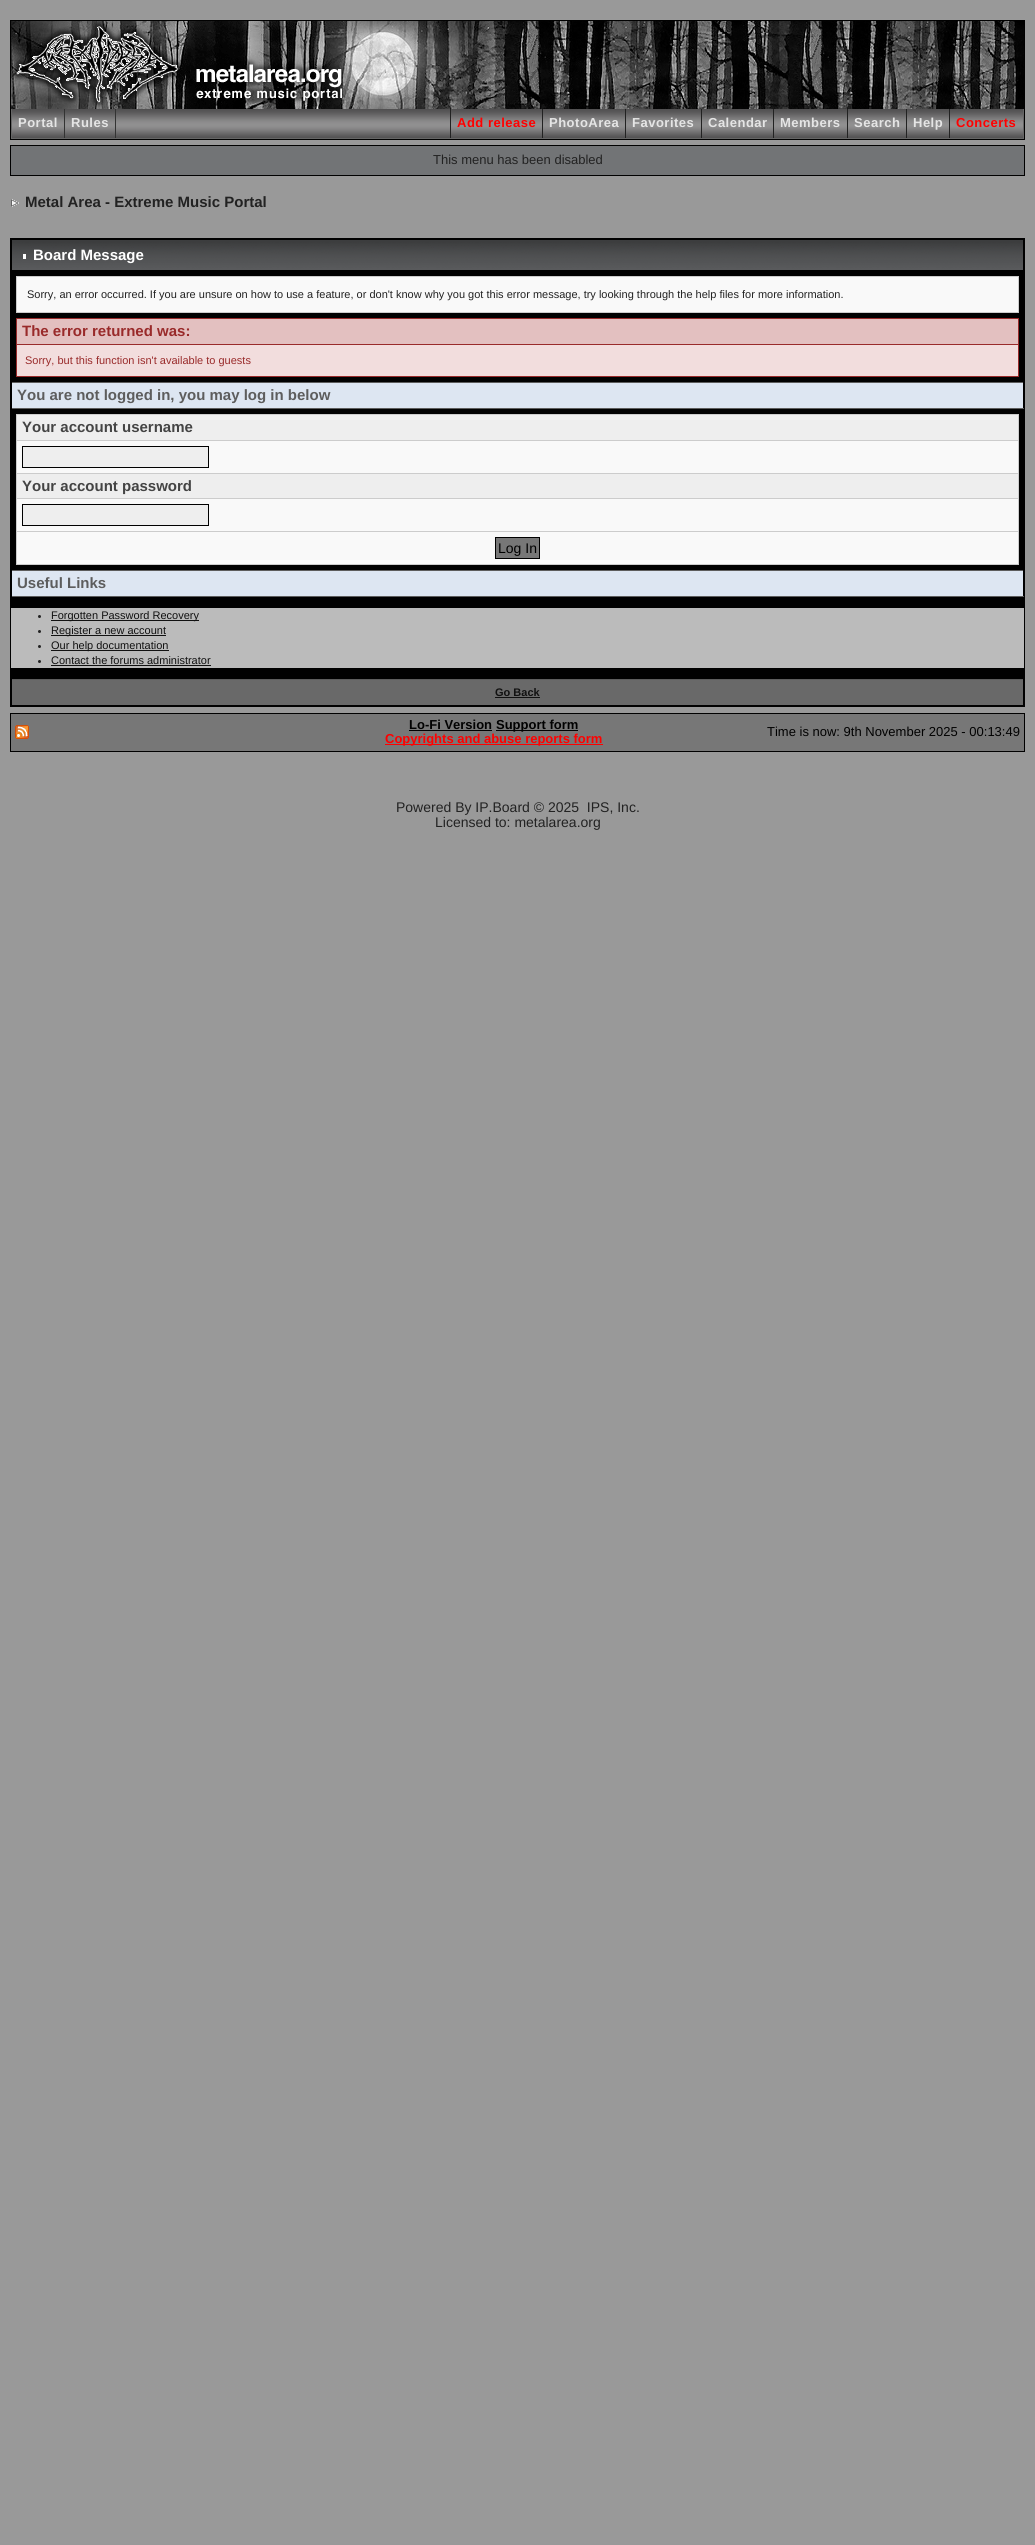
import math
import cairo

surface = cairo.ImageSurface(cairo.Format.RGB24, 1035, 2545)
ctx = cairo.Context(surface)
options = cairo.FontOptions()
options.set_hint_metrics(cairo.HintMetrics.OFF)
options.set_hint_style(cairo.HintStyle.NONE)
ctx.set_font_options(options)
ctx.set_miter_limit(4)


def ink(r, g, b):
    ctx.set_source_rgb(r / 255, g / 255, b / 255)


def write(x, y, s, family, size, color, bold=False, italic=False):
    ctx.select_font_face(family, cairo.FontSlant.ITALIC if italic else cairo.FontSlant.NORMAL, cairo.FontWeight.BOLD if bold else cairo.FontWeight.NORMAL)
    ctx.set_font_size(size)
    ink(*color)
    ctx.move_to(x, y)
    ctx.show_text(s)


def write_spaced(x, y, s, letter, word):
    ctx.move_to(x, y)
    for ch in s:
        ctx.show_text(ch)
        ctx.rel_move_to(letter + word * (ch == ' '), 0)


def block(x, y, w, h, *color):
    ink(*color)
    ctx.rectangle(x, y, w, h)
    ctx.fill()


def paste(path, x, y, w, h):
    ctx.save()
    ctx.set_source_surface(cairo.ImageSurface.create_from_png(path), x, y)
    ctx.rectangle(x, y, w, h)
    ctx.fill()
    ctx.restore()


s1 = dict(family="Liberation Sans", size=13, color=(34, 34, 34))
s2 = dict(family="Liberation Sans", size=15, color=(34, 34, 34), bold=True)
s3 = dict(family="Liberation Sans", size=15, color=(255, 255, 255), bold=True)
s4 = dict(family="Liberation Sans", size=11, color=(34, 34, 34))
s5 = dict(family="Liberation Sans", size=15, color=(153, 42, 42), bold=True)
s6 = dict(family="Liberation Sans", size=11, color=(153, 42, 42))
s7 = dict(family="Liberation Sans", size=15, color=(93, 93, 93), bold=True)
s8 = dict(family="Liberation Sans", size=15, color=(68, 68, 68), bold=True)
s9 = dict(family="Liberation Sans", size=14, color=(1, 1, 1))
s10 = dict(family="Liberation Sans", size=11, color=(17, 17, 17))
s11 = dict(family="Liberation Sans", size=11, color=(17, 17, 17), bold=True)
s12 = dict(family="Liberation Sans", size=13, color=(1, 1, 1), bold=True)
s13 = dict(family="Liberation Sans", size=13, color=(255, 0, 0), bold=True)
s14 = dict(family="Liberation Sans", size=13, color=(1, 1, 1))
s15 = dict(family="Liberation Sans", size=14, color=(34, 34, 34))

ink(153, 153, 153)
ctx.paint()
block(10, 20, 1015, 120, 1, 1, 1)
paste("pic1.png", 505, 21, 519, 88)
paste("pic2.png", 11, 21, 494, 88)
paste("pic3.png", 12, 109, 1011, 29)
block(1023, 109, 1, 30, 102, 102, 102)
block(11, 138, 1013, 1, 102, 102, 102)
block(11, 109, 1, 30, 102, 102, 102)
block(64, 109, 1, 29, 51, 51, 51)
ctx.select_font_face("Liberation Sans", cairo.FontSlant.NORMAL, cairo.FontWeight.BOLD)
ctx.set_font_size(13)
ink(229, 229, 229)
write_spaced(18, 127, "Portal", 0.5, 0)
block(115, 109, 1, 29, 51, 51, 51)
ink(229, 229, 229)
write_spaced(71, 127, "Rules", 0.5, 0)
block(450, 109, 1, 29, 34, 34, 34)
ink(255, 0, 0)
write_spaced(457, 127, "Add release", 0.5, 0)
block(542, 109, 1, 29, 34, 34, 34)
ink(229, 229, 229)
write_spaced(549, 127, "PhotoArea", 0.5, 0)
block(625, 109, 1, 29, 34, 34, 34)
ink(229, 229, 229)
write_spaced(632, 127, "Favorites", 0.5, 0)
block(701, 109, 1, 29, 34, 34, 34)
ink(229, 229, 229)
write_spaced(708, 127, "Calendar", 0.5, 0)
block(773, 109, 1, 29, 34, 34, 34)
ink(229, 229, 229)
write_spaced(780, 127, "Members", 0.5, 0)
block(847, 109, 1, 29, 34, 34, 34)
ink(229, 229, 229)
write_spaced(854, 127, "Search", 0.5, 0)
block(906, 109, 1, 29, 34, 34, 34)
ink(229, 229, 229)
write_spaced(913, 127, "Help", 0.5, 0)
block(949, 109, 1, 29, 34, 34, 34)
ink(255, 0, 0)
write_spaced(956, 127, "Concerts", 0.5, 0)
ink(114, 116, 118)
ctx.rectangle(10.5, 145.5, 1014, 30)
ctx.fill_preserve()
ink(0, 0, 0)
ctx.set_line_width(1)
ctx.stroke()
write(433, 164, "This menu has been disabled", **s1)
paste("pic4.png", 11, 199, 8, 8)
write(25, 207, "Metal Area - Extreme Music Portal", **s2)
block(10, 238, 1015, 469, 1, 1, 1)
paste("pic5.png", 12, 240, 1011, 30)
block(23, 254, 3, 5, 255, 255, 255)
write(33, 260, "Board Message", **s3)
ink(249, 249, 249)
ctx.rectangle(16.5, 276.5, 1002, 36)
ctx.fill_preserve()
ink(204, 204, 204)
ctx.stroke()
write(27, 298, "Sorry, an error occurred. If you are unsure on how to use a feature, or don't know why you got this error message, try looking through the help files for more information.", **s4)
block(17, 345, 1001, 31, 242, 221, 221)
block(1018, 318, 1, 59, 153, 42, 42)
block(16, 376, 1003, 1, 153, 42, 42)
block(16, 318, 1, 59, 153, 42, 42)
block(17, 319, 1001, 25, 227, 192, 192)
block(17, 318, 1001, 1, 153, 42, 42)
block(17, 344, 1001, 1, 153, 42, 42)
write(22, 336, "The error returned was:", **s5)
write(25, 364, "Sorry, but this function isn't available to guests", **s6)
block(12, 383, 1011, 25, 221, 230, 242)
block(11, 382, 1013, 1, 93, 93, 93)
block(1023, 382, 1, 1, 1, 1, 1)
block(11, 408, 1013, 1, 93, 93, 93)
block(11, 382, 1, 27, 1, 1, 1)
write(17, 400, "You are not logged in, you may log in below", **s7)
block(17, 441, 1001, 123, 249, 249, 249)
block(1018, 414, 1, 151, 204, 204, 204)
block(16, 564, 1003, 1, 204, 204, 204)
block(16, 414, 1, 151, 204, 204, 204)
block(17, 415, 1001, 25, 238, 238, 238)
block(17, 414, 1001, 1, 204, 204, 204)
block(17, 440, 1001, 1, 204, 204, 204)
write(22, 432, "Your account username", **s8)
ink(238, 238, 238)
ctx.rectangle(22.5, 446.5, 186, 21)
ctx.fill_preserve()
ink(0, 0, 0)
ctx.stroke()
block(17, 474, 1001, 24, 238, 238, 238)
block(17, 473, 1001, 1, 204, 204, 204)
block(17, 498, 1001, 1, 204, 204, 204)
write(22, 491, "Your account password", **s8)
ink(238, 238, 238)
ctx.rectangle(22.5, 504.5, 186, 21)
ctx.fill_preserve()
ink(0, 0, 0)
ctx.stroke()
block(17, 531, 1001, 1, 204, 204, 204)
ink(119, 119, 119)
ctx.rectangle(495.5, 537.5, 44, 21)
ctx.fill_preserve()
ink(0, 0, 0)
ctx.stroke()
write(498, 553, "Log In", **s9)
block(12, 571, 1011, 25, 221, 230, 242)
block(11, 570, 1013, 1, 93, 93, 93)
block(1023, 570, 1, 1, 1, 1, 1)
block(11, 596, 1013, 1, 93, 93, 93)
block(11, 570, 1, 27, 1, 1, 1)
write(17, 588, "Useful Links", **s7)
block(11, 608, 1013, 60, 187, 187, 187)
ink(34, 34, 34)
ctx.new_path()
ctx.arc(39.5, 616.5, 1.5, 0, 2 * math.pi)
ctx.fill()
block(51, 620, 148, 1, 17, 17, 17)
write(51, 619, "Forgotten Password Recovery", **s10)
ink(34, 34, 34)
ctx.new_path()
ctx.arc(39.5, 631.5, 1.5, 0, 2 * math.pi)
ctx.fill()
block(51, 635, 115, 1, 17, 17, 17)
write(51, 634, "Register a new account", **s10)
ink(34, 34, 34)
ctx.new_path()
ctx.arc(39.5, 646.5, 1.5, 0, 2 * math.pi)
ctx.fill()
block(51, 650, 118, 1, 17, 17, 17)
write(51, 649, "Our help documentation", **s10)
ink(34, 34, 34)
ctx.new_path()
ctx.arc(39.5, 661.5, 1.5, 0, 2 * math.pi)
ctx.fill()
write(51, 664, "Contact the forums administrator", **s10)
block(51, 665, 160, 1, 17, 17, 17)
block(12, 680, 1011, 25, 105, 105, 105)
block(11, 679, 1013, 1, 93, 93, 93)
block(1023, 679, 1, 1, 1, 1, 1)
block(11, 679, 1, 1, 1, 1, 1)
write(495, 696, "Go Back", **s11)
block(495, 697, 45, 1, 17, 17, 17)
ink(119, 119, 119)
ctx.rectangle(10.5, 713.5, 1014, 38)
ctx.fill_preserve()
ink(0, 0, 0)
ctx.stroke()
paste("pic6.png", 15, 725, 14, 14)
write(409, 729, "Lo-Fi Version", **s12)
block(409, 730, 83, 1, 1, 1, 1)
block(496, 730, 82, 1, 1, 1, 1)
write(496, 729, "Support form", **s12)
block(385, 744, 218, 1, 255, 0, 0)
write(385, 743, "Copyrights and abuse reports form", **s13)
write(767, 736, "Time is now: 9th November 2025 - 00:13:49", **s14)
write(396, 812, "Powered By IP.Board © 2025  IPS, Inc.", **s15)
write(435, 827, "Licensed to: metalarea.org", **s15)
surface.write_to_png("screenshot.png")
